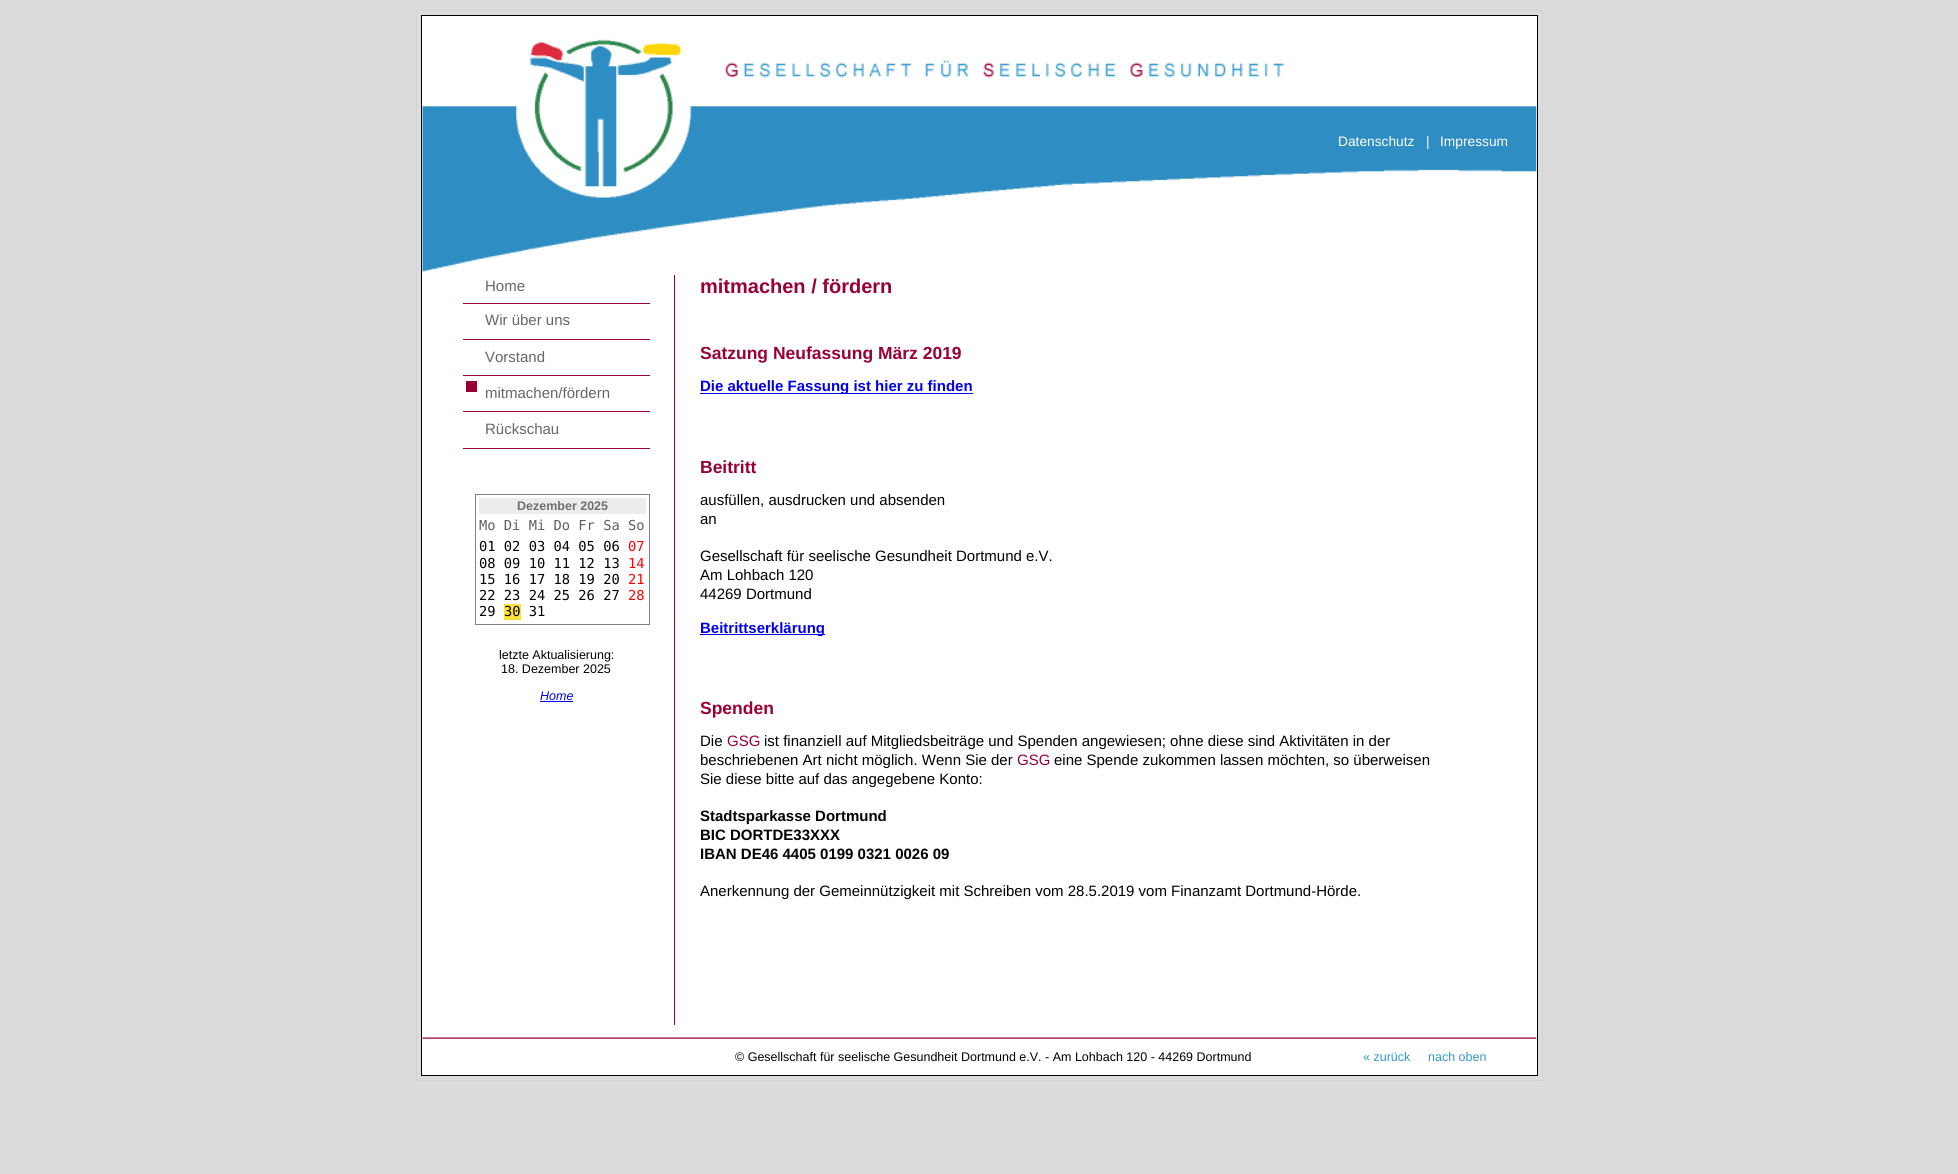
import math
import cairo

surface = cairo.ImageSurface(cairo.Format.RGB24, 1958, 1174)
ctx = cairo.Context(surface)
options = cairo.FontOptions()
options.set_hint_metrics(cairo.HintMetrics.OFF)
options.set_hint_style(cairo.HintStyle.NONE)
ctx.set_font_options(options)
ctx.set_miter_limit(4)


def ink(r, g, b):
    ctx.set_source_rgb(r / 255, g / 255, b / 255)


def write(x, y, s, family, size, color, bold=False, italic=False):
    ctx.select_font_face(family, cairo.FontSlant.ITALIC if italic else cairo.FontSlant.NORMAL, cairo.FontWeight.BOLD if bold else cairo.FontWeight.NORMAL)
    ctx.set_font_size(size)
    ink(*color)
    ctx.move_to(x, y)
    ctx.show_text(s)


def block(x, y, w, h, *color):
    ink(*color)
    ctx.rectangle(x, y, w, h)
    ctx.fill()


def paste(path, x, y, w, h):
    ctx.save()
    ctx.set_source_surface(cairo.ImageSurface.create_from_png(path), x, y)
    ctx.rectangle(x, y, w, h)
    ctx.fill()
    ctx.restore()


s1 = dict(family="Liberation Sans", size=13.75, color=(255, 255, 255))
s2 = dict(family="Liberation Sans", size=15, color=(102, 102, 102))
s3 = dict(family="Liberation Sans", size=12.5, color=(111, 111, 111), bold=True)
s4 = dict(family="DejaVu Sans Mono", size=13.75, color=(95, 95, 95))
s5 = dict(family="DejaVu Sans Mono", size=13.75, color=(0, 0, 0))
s6 = dict(family="DejaVu Sans Mono", size=13.75, color=(255, 0, 0))
s7 = dict(family="Liberation Sans", size=12.5, color=(0, 0, 0))
s8 = dict(family="Liberation Sans", size=12.5, color=(0, 0, 238), italic=True)
s9 = dict(family="Liberation Sans", size=20, color=(153, 0, 51), bold=True)
s10 = dict(family="Liberation Sans", size=17.5, color=(153, 0, 51), bold=True)
s11 = dict(family="Liberation Sans", size=15, color=(0, 0, 238), bold=True)
s12 = dict(family="Liberation Sans", size=15, color=(0, 0, 0))
s13 = dict(family="Liberation Sans", size=15, color=(153, 0, 51))
s14 = dict(family="Liberation Sans", size=15, color=(0, 0, 0), bold=True)
s15 = dict(family="Liberation Sans", size=12.5, color=(51, 153, 204))

ink(220, 220, 220)
ctx.paint()
ctx.rectangle(416.5, 10.5, 1126, 1070)
ink(211, 211, 211)
ctx.set_line_width(1)
ctx.stroke()
ink(255, 255, 255)
ctx.rectangle(421.5, 15.5, 1116, 1060)
ctx.fill_preserve()
ink(0, 0, 0)
ctx.stroke()
paste("pic1.png", 422, 39, 1115, 233)
write(1338, 146, "Datenschutz", **s1)
write(1426, 146, "|", **s1)
write(1440, 146, "Impressum", **s1)
write(485, 291, "Home", **s2)
block(463, 303, 187, 1, 153, 0, 51)
write(485, 325, "Wir über uns", **s2)
block(463, 339, 187, 1, 153, 0, 51)
write(485, 362, "Vorstand", **s2)
block(463, 375, 187, 1, 153, 0, 51)
block(463, 411, 187, 1, 153, 0, 51)
block(466, 381, 11, 11, 153, 0, 51)
write(485, 398, "mitmachen/fördern", **s2)
write(485, 434, "Rückschau", **s2)
block(463, 448, 187, 1, 153, 0, 51)
ctx.rectangle(475.5, 494.5, 174, 130)
ink(128, 130, 133)
ctx.stroke()
block(479, 498, 167, 16, 236, 236, 236)
write(517, 510, "Dezember 2025", **s3)
write(479, 530, "Mo Di Mi Do Fr Sa So", **s4)
write(479, 551, "01 02 03 04 05 06", **s5)
write(628, 551, "07", **s6)
write(479, 568, "08 09 10 11 12 13", **s5)
write(628, 568, "14", **s6)
write(479, 584, "15 16 17 18 19 20", **s5)
write(628, 584, "21", **s6)
write(479, 600, "22 23 24 25 26 27", **s5)
write(628, 600, "28", **s6)
write(479, 616, "29", **s5)
block(504, 604, 17, 16, 255, 226, 55)
write(504, 616, "30 31", **s5)
write(499, 659, "letzte Aktualisierung:", **s7)
write(501, 673, "18. Dezember 2025", **s7)
write(540, 700, "Home", **s8)
block(540, 701, 33, 1, 0, 0, 238)
block(674, 275, 1, 750, 153, 0, 51)
write(700, 293, "mitmachen / fördern", **s9)
write(700, 359, "Satzung Neufassung März 2019", **s10)
block(700, 393, 273, 1, 0, 0, 238)
write(700, 391, "Die aktuelle Fassung ist hier zu finden", **s11)
write(700, 473, "Beitritt", **s10)
write(700, 505, "ausfüllen, ausdrucken und absenden", **s12)
write(700, 524, "an", **s12)
write(700, 561, "Gesellschaft für seelische Gesundheit Dortmund e.V.", **s12)
write(700, 580, "Am Lohbach 120", **s12)
write(700, 599, "44269 Dortmund", **s12)
block(700, 634, 125, 1, 0, 0, 238)
write(700, 633, "Beitrittserklärung", **s11)
write(700, 714, "Spenden", **s10)
write(700, 746, "Die", **s12)
write(727, 746, "GSG", **s13)
write(764, 746, "ist finanziell auf Mitgliedsbeiträge und Spenden angewiesen; ohne diese sind Aktivitäten in der", **s12)
write(700, 765, "beschriebenen Art nicht möglich. Wenn Sie der", **s12)
write(1017, 765, "GSG", **s13)
write(1054, 765, "eine Spende zukommen lassen möchten, so überweisen", **s12)
write(700, 784, "Sie diese bitte auf das angegebene Konto:", **s12)
write(700, 821, "Stadtsparkasse Dortmund", **s14)
write(700, 840, "BIC DORTDE33XXX", **s14)
write(700, 859, "IBAN DE46 4405 0199 0321 0026 09", **s14)
write(700, 896, "Anerkennung der Gemeinnützigkeit mit Schreiben vom 28.5.2019 vom Finanzamt Dortmund-Hörde.", **s12)
paste("pic2.png", 422, 1037, 1115, 2)
write(735, 1061, "© Gesellschaft für seelische Gesundheit Dortmund e.V. - Am Lohbach 120 - 44269 Dortmund", **s7)
write(1363, 1061, "« zurück", **s15)
write(1428, 1061, "nach oben", **s15)
surface.write_to_png("screenshot.png")
